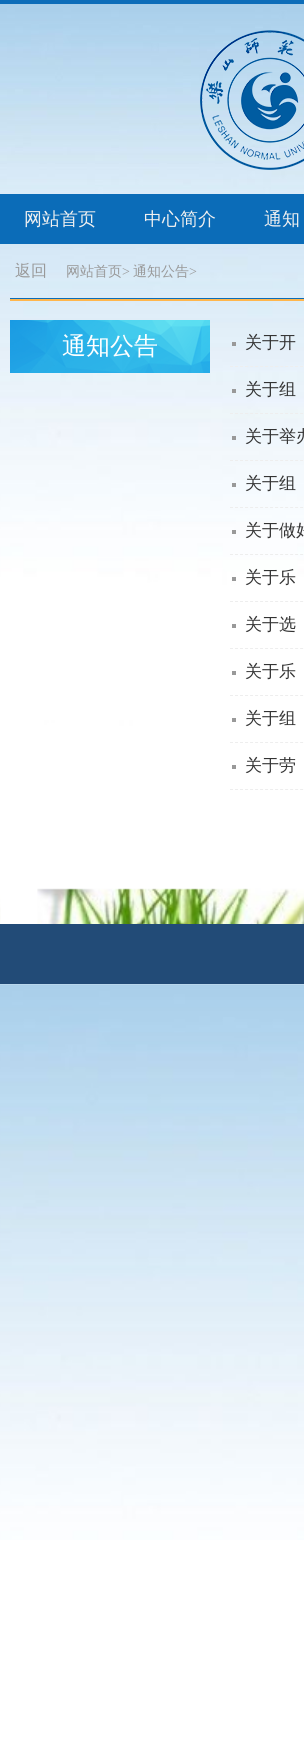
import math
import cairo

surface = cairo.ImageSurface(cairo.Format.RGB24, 304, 1763)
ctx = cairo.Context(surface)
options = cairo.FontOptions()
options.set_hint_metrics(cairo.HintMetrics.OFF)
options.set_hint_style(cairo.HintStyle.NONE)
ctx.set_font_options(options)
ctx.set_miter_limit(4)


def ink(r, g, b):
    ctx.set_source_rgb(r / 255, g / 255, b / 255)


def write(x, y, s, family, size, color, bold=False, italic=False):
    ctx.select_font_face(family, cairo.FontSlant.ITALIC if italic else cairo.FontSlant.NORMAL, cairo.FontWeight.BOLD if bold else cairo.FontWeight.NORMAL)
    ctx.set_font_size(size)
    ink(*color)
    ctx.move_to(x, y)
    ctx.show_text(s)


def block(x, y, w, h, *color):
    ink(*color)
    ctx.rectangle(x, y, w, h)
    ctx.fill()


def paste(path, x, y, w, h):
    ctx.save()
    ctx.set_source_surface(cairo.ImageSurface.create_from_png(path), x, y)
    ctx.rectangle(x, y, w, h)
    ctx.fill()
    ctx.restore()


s1 = dict(family="WenQuanYi Zen Hei Medium", size=18, color=(240, 240, 240))
s2 = dict(family="WenQuanYi Zen Hei Medium", size=16, color=(153, 153, 153))
s3 = dict(family="WenQuanYi Zen Hei Medium", size=14, color=(153, 153, 153))
s4 = dict(family="Liberation Serif", size=14, color=(153, 153, 153))
s5 = dict(family="WenQuanYi Zen Hei Medium", size=24, color=(255, 255, 255))
s6 = dict(family="WenQuanYi Zen Hei Medium", size=17, color=(51, 51, 51))

ink(255, 255, 255)
ctx.paint()
paste("pic1.png", 0, 244, 304, 1296)
paste("pic2.png", 0, 4, 304, 190)
block(0, 0, 304, 4, 13, 109, 185)
paste("pic3.png", 200, 30, 104, 140)
block(0, 194, 304, 50, 11, 108, 184)
write(24, 225, "网站首页", **s1)
write(144, 225, "中心简介", **s1)
write(264, 225, "通知", **s1)
block(10, 298, 294, 1, 11, 108, 184)
block(10, 299, 294, 2, 255, 182, 77)
write(15, 276, "返回", **s2)
write(66, 276, "网站首页", **s3)
write(122, 276, ">", **s4)
write(133, 276, "通知公告", **s3)
write(189, 276, ">", **s4)
paste("pic4.png", 10, 320, 200, 53)
write(62, 354, "通知公告", **s5)
block(232, 342, 4, 4, 153, 153, 153)
ctx.new_path()
ctx.move_to(230, 366.5)
ctx.line_to(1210, 366.5)
ink(238, 238, 238)
ctx.set_line_width(1)
ctx.set_dash([3, 2.01])
ctx.stroke()
write(245, 348, "关于开", **s6)
block(232, 389, 4, 4, 153, 153, 153)
ctx.new_path()
ctx.move_to(230, 413.5)
ctx.line_to(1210, 413.5)
ink(238, 238, 238)
ctx.stroke()
write(245, 395, "关于组", **s6)
block(232, 436, 4, 4, 153, 153, 153)
ctx.new_path()
ctx.move_to(230, 460.5)
ctx.line_to(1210, 460.5)
ink(238, 238, 238)
ctx.stroke()
write(245, 442, "关于举办", **s6)
block(232, 483, 4, 4, 153, 153, 153)
ctx.new_path()
ctx.move_to(230, 507.5)
ctx.line_to(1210, 507.5)
ink(238, 238, 238)
ctx.stroke()
write(245, 489, "关于组", **s6)
block(232, 530, 4, 4, 153, 153, 153)
ctx.new_path()
ctx.move_to(230, 554.5)
ctx.line_to(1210, 554.5)
ink(238, 238, 238)
ctx.stroke()
write(245, 536, "关于做好", **s6)
block(232, 577, 4, 4, 153, 153, 153)
ctx.new_path()
ctx.move_to(230, 601.5)
ctx.line_to(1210, 601.5)
ink(238, 238, 238)
ctx.stroke()
write(245, 583, "关于乐", **s6)
block(232, 624, 4, 4, 153, 153, 153)
ctx.new_path()
ctx.move_to(230, 648.5)
ctx.line_to(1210, 648.5)
ink(238, 238, 238)
ctx.stroke()
write(245, 630, "关于选", **s6)
block(232, 671, 4, 4, 153, 153, 153)
ctx.new_path()
ctx.move_to(230, 695.5)
ctx.line_to(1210, 695.5)
ink(238, 238, 238)
ctx.stroke()
write(245, 677, "关于乐", **s6)
block(232, 718, 4, 4, 153, 153, 153)
ctx.new_path()
ctx.move_to(230, 742.5)
ctx.line_to(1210, 742.5)
ink(238, 238, 238)
ctx.stroke()
write(245, 724, "关于组", **s6)
block(232, 765, 4, 4, 153, 153, 153)
ctx.new_path()
ctx.move_to(230, 789.5)
ctx.line_to(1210, 789.5)
ink(238, 238, 238)
ctx.stroke()
write(245, 771, "关于劳", **s6)
block(0, 924, 304, 60, 34, 75, 119)
surface.write_to_png("screenshot.png")
